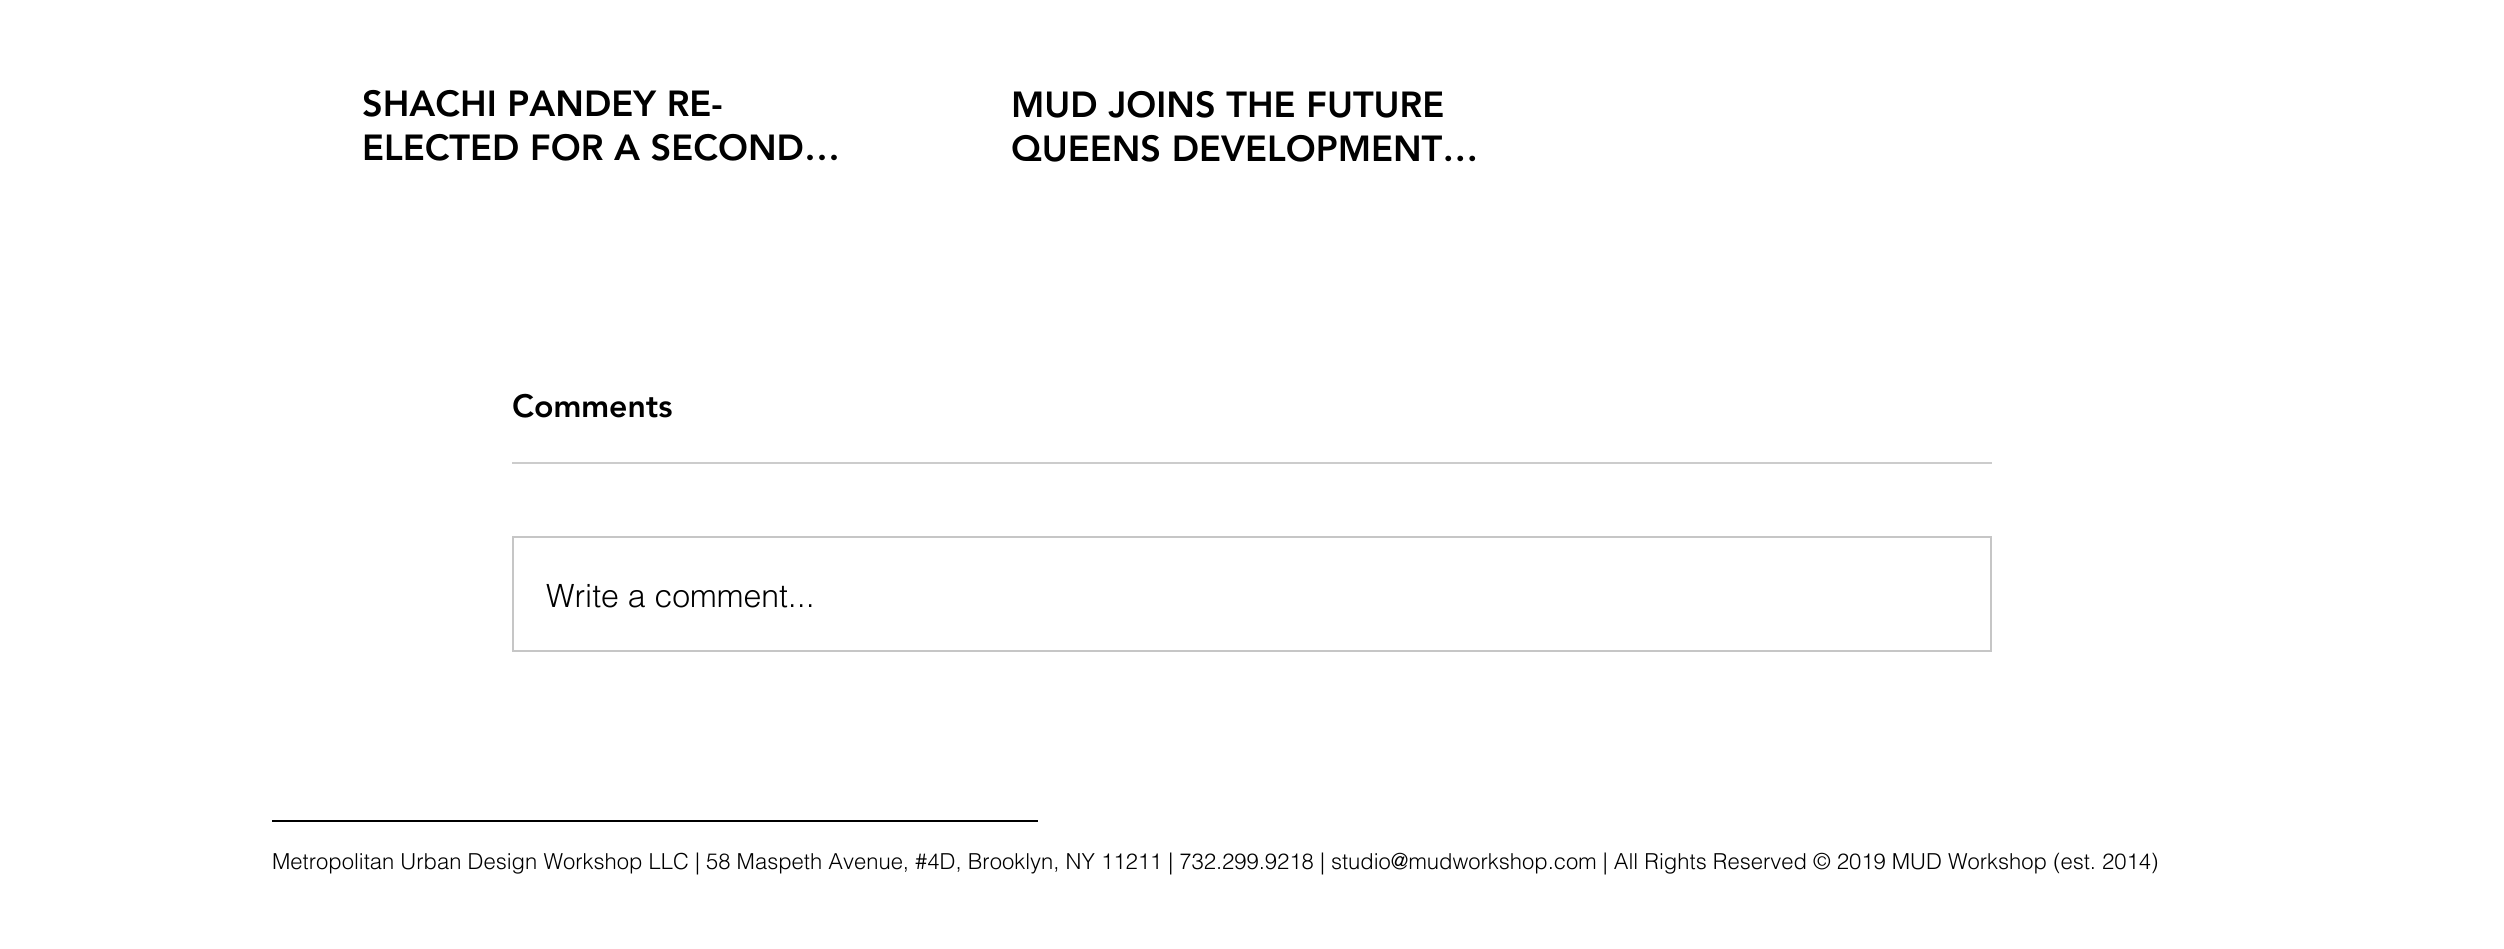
import math
import cairo

surface = cairo.ImageSurface(cairo.Format.RGB24, 2504, 949)
ctx = cairo.Context(surface)
options = cairo.FontOptions()
options.set_hint_metrics(cairo.HintMetrics.OFF)
options.set_hint_style(cairo.HintStyle.NONE)
ctx.set_font_options(options)
ctx.set_miter_limit(4)


def ink(r, g, b):
    ctx.set_source_rgb(r / 255, g / 255, b / 255)


def write(x, y, s, family, size, color, bold=False, italic=False):
    ctx.select_font_face(family, cairo.FontSlant.ITALIC if italic else cairo.FontSlant.NORMAL, cairo.FontWeight.BOLD if bold else cairo.FontWeight.NORMAL)
    ctx.set_font_size(size)
    ink(*color)
    ctx.move_to(x, y)
    ctx.show_text(s)


def block(x, y, w, h, *color):
    ink(*color)
    ctx.rectangle(x, y, w, h)
    ctx.fill()


s1 = dict(family="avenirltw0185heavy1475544 Black", size=36, color=(0, 0, 0))
s2 = dict(family="avenirltw0185heavy1475544 Black", size=32, color=(0, 0, 0))
s3 = dict(family="helvetica Light", size=32, color=(0, 0, 0))
s4 = dict(family="helvetica Light", size=22, color=(0, 0, 0))

ink(255, 255, 255)
ctx.paint()
write(362, 116, "SHACHI PANDEY RE-", **s1)
write(362, 160, "ELECTED FOR A SECOND…", **s1)
write(1011, 117, "MUD JOINS THE FUTURE", **s1)
write(1011, 161, "QUEENS DEVELOPMENT…", **s1)
write(512, 417, "Comments", **s2)
block(512, 462, 1480, 2, 204, 204, 204)
ctx.rectangle(513, 537, 1478, 114)
ink(198, 198, 198)
ctx.stroke()
write(546, 607, "Write a comment...", **s3)
block(272, 820, 766, 2, 0, 0, 0)
write(272, 869, "Metropolitan Urban Design Workshop LLC | 58 Maspeth Avenue, #4D, Brooklyn, NY 11211 | 732.299.9218 | studio@mudworkshop.com | All Rights Reserved © 2019 MUD Workshop (est. 2014)", **s4)
surface.write_to_png("screenshot.png")
